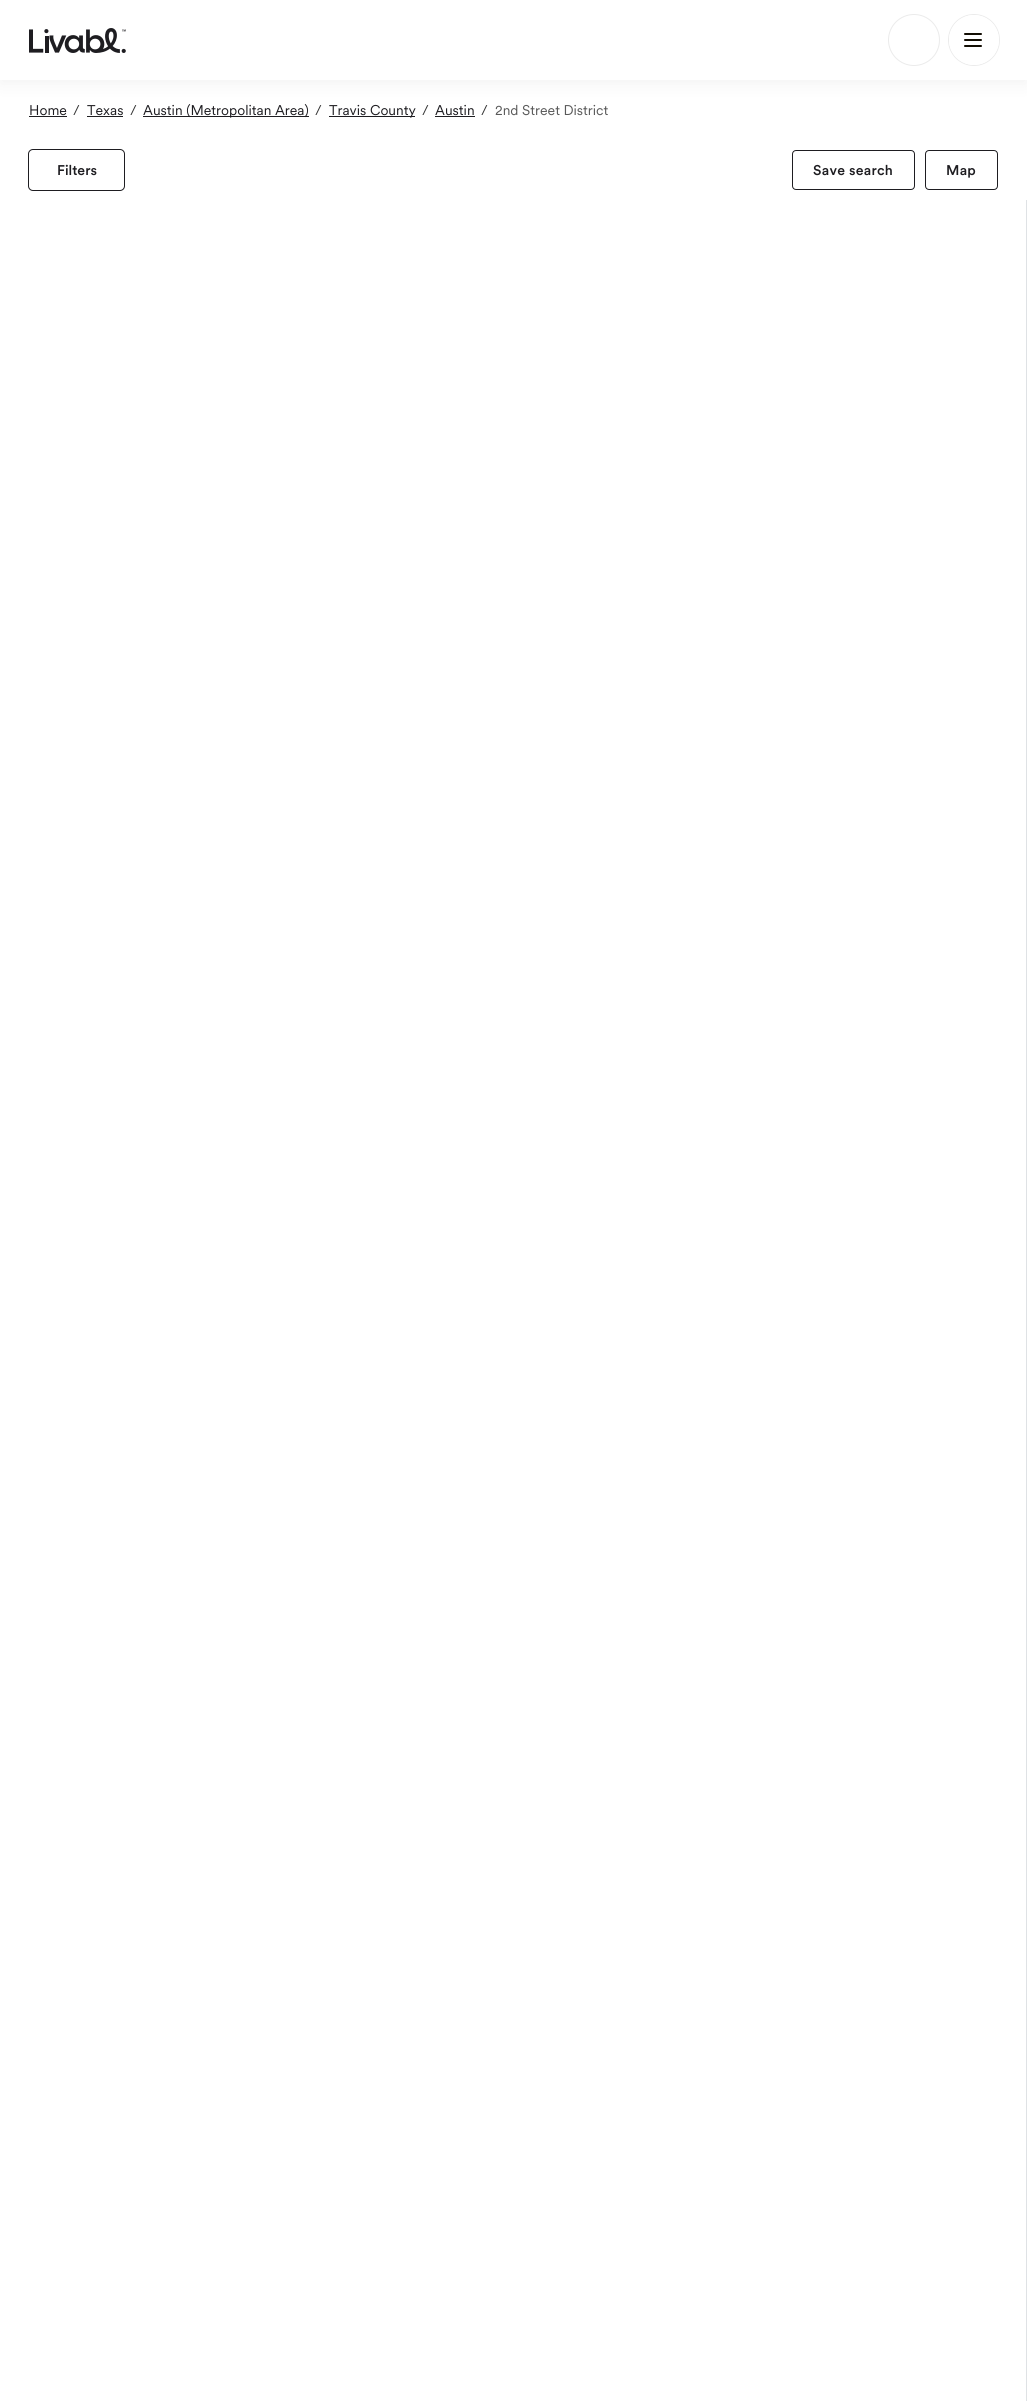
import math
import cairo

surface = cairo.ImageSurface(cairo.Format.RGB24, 1027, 2401)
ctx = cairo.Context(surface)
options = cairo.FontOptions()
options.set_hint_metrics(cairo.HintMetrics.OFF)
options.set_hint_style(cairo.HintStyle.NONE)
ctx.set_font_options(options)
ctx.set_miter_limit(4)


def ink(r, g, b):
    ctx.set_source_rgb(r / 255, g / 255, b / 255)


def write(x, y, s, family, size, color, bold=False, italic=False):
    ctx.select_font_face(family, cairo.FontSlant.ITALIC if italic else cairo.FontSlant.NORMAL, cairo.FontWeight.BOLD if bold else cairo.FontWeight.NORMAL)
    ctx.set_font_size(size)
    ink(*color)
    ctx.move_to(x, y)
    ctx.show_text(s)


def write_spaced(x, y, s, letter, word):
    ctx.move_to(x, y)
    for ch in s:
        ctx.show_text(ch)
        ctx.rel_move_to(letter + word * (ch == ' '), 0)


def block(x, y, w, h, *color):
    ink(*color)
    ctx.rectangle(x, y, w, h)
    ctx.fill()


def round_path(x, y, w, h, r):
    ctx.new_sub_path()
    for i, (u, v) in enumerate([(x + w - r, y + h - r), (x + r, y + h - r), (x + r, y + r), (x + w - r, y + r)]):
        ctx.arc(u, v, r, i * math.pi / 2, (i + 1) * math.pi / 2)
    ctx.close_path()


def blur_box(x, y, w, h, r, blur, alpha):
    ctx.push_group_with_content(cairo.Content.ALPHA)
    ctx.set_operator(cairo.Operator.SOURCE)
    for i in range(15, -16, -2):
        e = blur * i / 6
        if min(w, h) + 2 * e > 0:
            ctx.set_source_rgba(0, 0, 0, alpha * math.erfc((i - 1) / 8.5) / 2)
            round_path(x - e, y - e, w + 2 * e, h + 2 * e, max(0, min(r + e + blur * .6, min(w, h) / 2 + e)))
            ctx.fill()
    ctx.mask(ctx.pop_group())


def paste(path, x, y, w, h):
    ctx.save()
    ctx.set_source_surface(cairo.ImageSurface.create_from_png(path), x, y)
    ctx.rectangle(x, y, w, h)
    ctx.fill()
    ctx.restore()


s1 = dict(family="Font", size=14, color=(30, 29, 33))
s2 = dict(family="Font", size=14, color=(51, 51, 51))
s3 = dict(family="Font", size=14, color=(89, 89, 89))
s4 = dict(family="Font Medium", size=14, color=(30, 29, 33))

ink(255, 255, 255)
ctx.paint()
ink(0, 0, 0)
blur_box(0, 4, 1027, 80, 0, 8.5, 0.05)
block(0, 0, 1027, 80, 255, 255, 255)
paste("pic1.png", 29, 28, 97, 25)
ctx.arc(914, 40, 25.5, 0, 2 * math.pi)
ink(235, 235, 235)
ctx.set_line_width(1)
ctx.stroke()
ctx.arc(974, 40, 25.5, 0, 2 * math.pi)
ctx.stroke()
ink(255, 255, 255)
ctx.arc(974, 40, 25, 0, 2 * math.pi)
ctx.fill()
ink(19, 14, 4)
round_path(964, 33, 18, 2, 1)
ctx.fill()
round_path(964, 39, 18, 2, 1)
ctx.fill()
round_path(964, 45, 18, 2, 1)
ctx.fill()
write(29, 115, "Home", **s1)
block(29, 116, 38, 1, 30, 29, 33)
write(73, 115, "/", **s2)
write(87, 115, "Texas", **s1)
block(87, 116, 36, 1, 30, 29, 33)
write(130, 115, "/", **s2)
block(143, 116, 166, 1, 30, 29, 33)
write(143, 115, "Austin (Metropolitan Area)", **s1)
write(315, 115, "/", **s2)
block(329, 116, 86, 1, 30, 29, 33)
write(329, 115, "Travis County", **s1)
write(422, 115, "/", **s2)
write(435, 115, "Austin", **s1)
block(435, 116, 40, 1, 30, 29, 33)
write(481, 115, "/", **s2)
write(495, 115, "2nd Street District", **s3)
round_path(28.5, 149.5, 96, 41, 4.5)
ink(30, 29, 33)
ctx.stroke()
write(57, 175, "Filters", **s4)
round_path(792.5, 150.5, 122, 39, 3.5)
ctx.stroke()
write_spaced(813, 175, "Save search", 0.25, 0)
round_path(925.5, 150.5, 72, 39, 3.5)
ctx.stroke()
write_spaced(946, 175, "Map", 0.25, 0)
block(1026, 200, 1, 2201, 223, 226, 229)
surface.write_to_png("screenshot.png")
